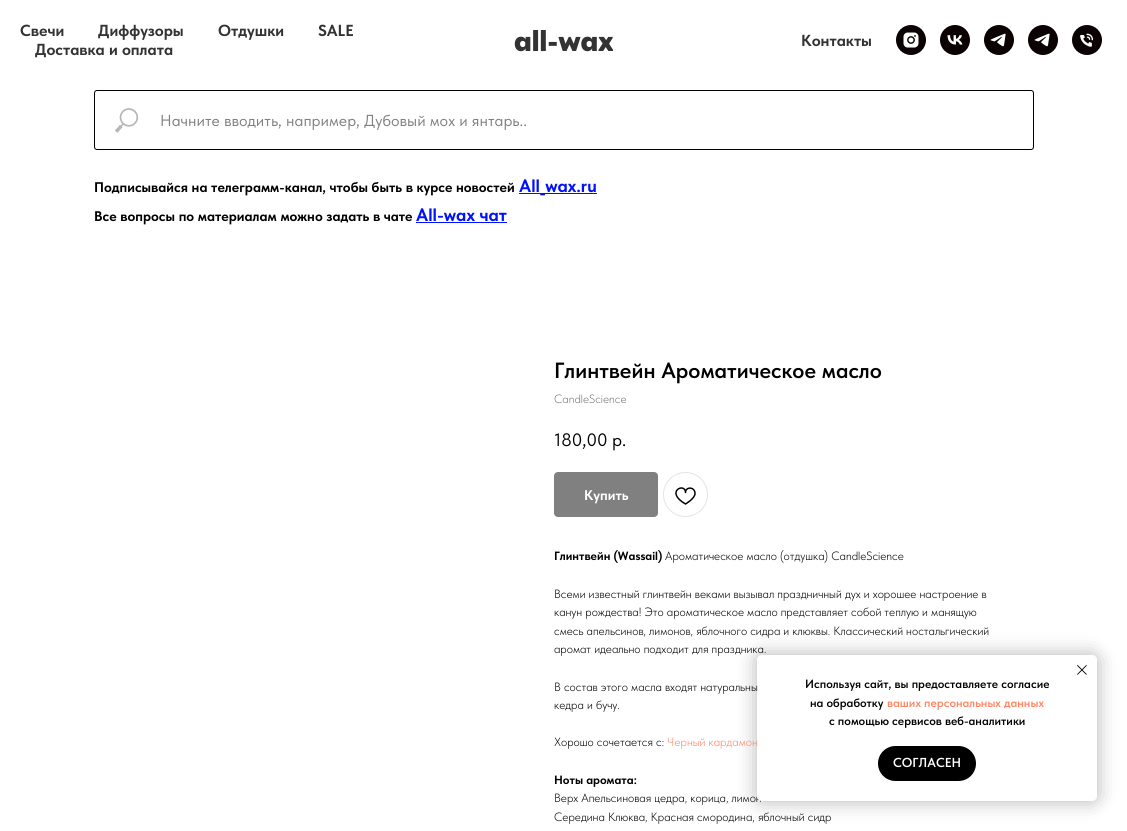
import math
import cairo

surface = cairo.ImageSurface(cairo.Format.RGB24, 1127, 831)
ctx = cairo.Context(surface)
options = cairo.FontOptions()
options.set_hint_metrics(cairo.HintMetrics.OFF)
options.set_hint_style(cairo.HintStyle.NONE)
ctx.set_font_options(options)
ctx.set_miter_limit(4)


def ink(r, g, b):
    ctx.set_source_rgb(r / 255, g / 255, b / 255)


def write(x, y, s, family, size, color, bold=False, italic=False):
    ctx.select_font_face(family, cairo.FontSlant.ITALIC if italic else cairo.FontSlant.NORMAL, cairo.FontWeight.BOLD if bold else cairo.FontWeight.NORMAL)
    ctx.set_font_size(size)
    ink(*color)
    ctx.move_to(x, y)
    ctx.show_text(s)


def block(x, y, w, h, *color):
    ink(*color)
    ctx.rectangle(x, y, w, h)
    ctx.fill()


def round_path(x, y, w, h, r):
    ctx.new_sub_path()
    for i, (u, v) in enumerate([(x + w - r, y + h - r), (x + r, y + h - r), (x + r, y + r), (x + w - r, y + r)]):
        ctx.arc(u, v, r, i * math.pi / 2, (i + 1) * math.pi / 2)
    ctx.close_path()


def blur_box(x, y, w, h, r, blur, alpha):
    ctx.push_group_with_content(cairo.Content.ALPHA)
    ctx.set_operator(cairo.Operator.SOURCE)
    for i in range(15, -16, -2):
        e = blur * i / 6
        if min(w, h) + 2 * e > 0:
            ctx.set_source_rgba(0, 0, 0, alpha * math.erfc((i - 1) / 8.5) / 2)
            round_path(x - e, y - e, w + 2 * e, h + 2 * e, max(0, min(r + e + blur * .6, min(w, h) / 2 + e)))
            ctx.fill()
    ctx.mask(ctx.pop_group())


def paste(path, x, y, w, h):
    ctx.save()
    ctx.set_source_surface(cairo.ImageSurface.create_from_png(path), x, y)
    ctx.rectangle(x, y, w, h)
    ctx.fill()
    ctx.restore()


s1 = dict(family="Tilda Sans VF", size=16, color=(51, 51, 51), bold=True)
s2 = dict(family="Tilda Sans VF Black", size=30, color=(51, 51, 51))
s3 = dict(family="Tilda Sans VF", size=16, color=(128, 128, 128))
s4 = dict(family="Tilda Sans VF", size=14, color=(0, 0, 0), bold=True)
s5 = dict(family="Tilda Sans VF", size=18, color=(0, 17, 255), bold=True)
s6 = dict(family="Tilda Sans VF Light", size=12, color=(0, 0, 0))
s7 = dict(family="Tilda Sans VF SemiBold", size=12, color=(0, 0, 0))
s8 = dict(family="Tilda Sans VF SemiBold", size=12, color=(255, 133, 98))
s9 = dict(family="Tilda Sans VF SemiBold", size=13, color=(255, 255, 255))
s10 = dict(family="Tilda Sans VF SemiBold", size=22, color=(0, 0, 0))
s11 = dict(family="Tilda Sans VF Light", size=12, color=(119, 119, 119))
s12 = dict(family="Tilda Sans VF", size=18, color=(0, 0, 0))
s13 = dict(family="Tilda Sans VF", size=14, color=(255, 255, 255), bold=True)
s14 = dict(family="Tilda Sans VF", size=12, color=(0, 0, 0), bold=True)
s15 = dict(family="Tilda Sans VF Light", size=12, color=(255, 133, 98))

ink(255, 255, 255)
ctx.paint()
write(20, 36, "Свечи", **s1)
write(98, 36, "Диффузоры", **s1)
write(218, 36, "Отдушки", **s1)
write(318, 36, "SALE", **s1)
write(35, 55, "Доставка и оплата", **s1)
write(514, 51, "all-wax", **s2)
write(801, 46, "Контакты", **s1)
paste("pic1.png", 896, 25, 30, 30)
paste("pic2.png", 940, 25, 30, 30)
paste("pic3.png", 984, 25, 30, 30)
paste("pic3.png", 1028, 25, 30, 30)
paste("pic4.png", 1072, 25, 30, 30)
round_path(94.5, 90.5, 939, 59, 2.5)
ink(0, 0, 0)
ctx.set_line_width(1)
ctx.stroke()
paste("pic5.png", 115, 108, 24, 25)
write(160, 126, "Начните вводить, например, Дубовый мох и янтарь..", **s3)
write(94, 192, "Подписывайся на телеграмм-канал, чтобы быть в курсе новостей", **s4)
block(519, 193, 78, 1, 0, 17, 255)
write(519, 192, "All_wax.ru", **s5)
write(94, 221, "Все вопросы по материалам можно задать в чате", **s4)
write(416, 221, "All-wax чат", **s5)
block(416, 222, 91, 1, 0, 17, 255)
ink(0, 0, 0)
blur_box(757, 655, 340, 146, 5, 10, 0.3)
write(554, 653, "аромат идеально подходит для праздника.", **s6)
write(554, 802, "Верх Апельсиновая цедра, корица, лимон", **s6)
ink(255, 255, 255)
round_path(757, 655, 340, 146, 5)
ctx.fill()
paste("pic6.png", 1077, 665, 10, 10)
write(805, 688, "Используя сайт, вы предоставляете согласие", **s7)
write(810, 707, "на обработку", **s7)
write(887, 707, "ваших персональных данных", **s8)
write(829, 725, "с помощью сервисов веб-аналитики", **s7)
round_path(878, 746, 98, 35, 17.5)
ctx.fill()
write(893, 767, "СОГЛАСЕН", **s9)
write(554, 378, "Глинтвейн Ароматическое масло", **s10)
write(554, 403, "CandleScience", **s11)
write(554, 446, "180,00", **s12)
write(612, 446, "р.", **s12)
ink(128, 128, 128)
round_path(554, 472, 104, 45, 4)
ctx.fill()
write(584, 500, "Купить", **s13)
ctx.new_path()
ctx.arc(685.5, 494.5, 22, 0, 2 * math.pi)
ink(228, 228, 228)
ctx.stroke()
ctx.new_path()
ctx.move_to(695, 493.5)
ctx.curve_to(695, 498.5, 685.5, 504, 685.5, 504)
ctx.curve_to(664, 491.5, 685.5, 482, 685.5, 492.5)
ctx.curve_to(685.5, 486.5, 695, 486.5, 695, 493.5)
ctx.close_path()
ink(0, 0, 0)
ctx.set_line_width(1.5)
ctx.set_line_join(cairo.LineJoin.ROUND)
ctx.stroke()
write(554, 560, "Глинтвейн (Wassail)", **s14)
write(665, 560, "Ароматическое масло (отдушка) CandleScience", **s6)
write(554, 598, "Всеми известный глинтвейн веками вызывал праздничный дух и хорошее настроение в", **s6)
write(554, 616, "канун рождества! Это ароматическое масло представляет собой теплую и манящую", **s6)
write(554, 635, "смесь апельсинов, лимонов, яблочного сидра и клюквы. Классический ностальгический", **s6)
write(554, 691, "В состав этого масла входят натуральны", **s6)
write(554, 709, "кедра и бучу.", **s6)
write(554, 746, "Хорошо сочетается с:", **s6)
write(667, 746, "Черный кардамон", **s15)
write(554, 784, "Ноты аромата:", **s14)
write(554, 821, "Середина Клюква, Красная смородина, яблочный сидр", **s6)
surface.write_to_png("screenshot.png")
